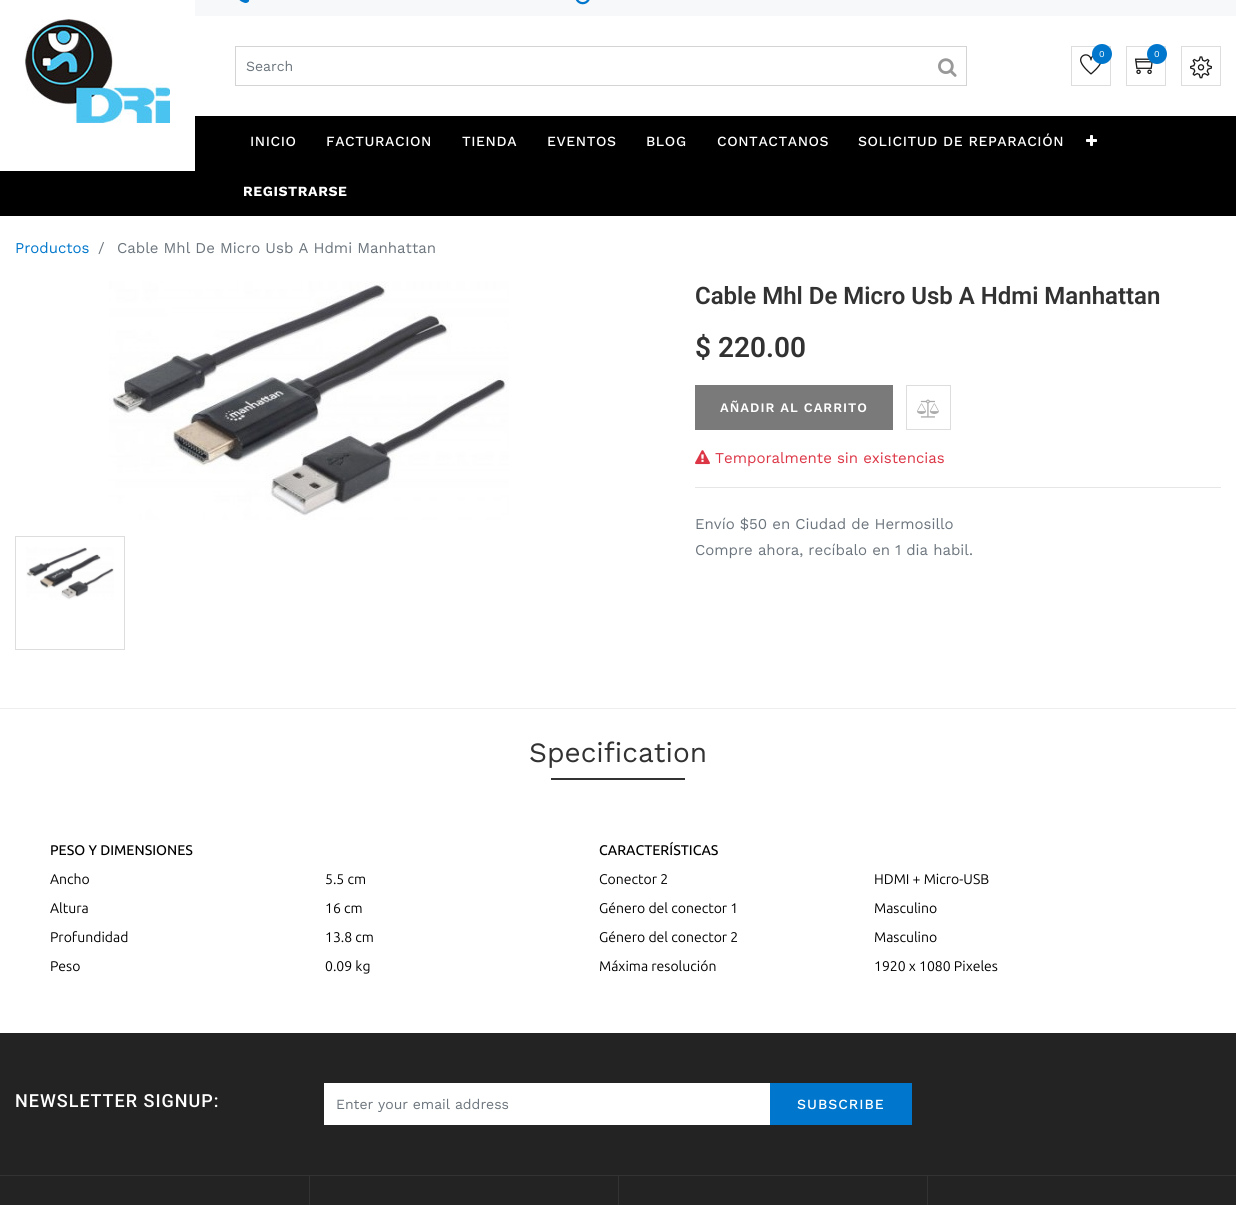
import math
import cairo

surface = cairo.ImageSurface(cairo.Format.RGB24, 1236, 1205)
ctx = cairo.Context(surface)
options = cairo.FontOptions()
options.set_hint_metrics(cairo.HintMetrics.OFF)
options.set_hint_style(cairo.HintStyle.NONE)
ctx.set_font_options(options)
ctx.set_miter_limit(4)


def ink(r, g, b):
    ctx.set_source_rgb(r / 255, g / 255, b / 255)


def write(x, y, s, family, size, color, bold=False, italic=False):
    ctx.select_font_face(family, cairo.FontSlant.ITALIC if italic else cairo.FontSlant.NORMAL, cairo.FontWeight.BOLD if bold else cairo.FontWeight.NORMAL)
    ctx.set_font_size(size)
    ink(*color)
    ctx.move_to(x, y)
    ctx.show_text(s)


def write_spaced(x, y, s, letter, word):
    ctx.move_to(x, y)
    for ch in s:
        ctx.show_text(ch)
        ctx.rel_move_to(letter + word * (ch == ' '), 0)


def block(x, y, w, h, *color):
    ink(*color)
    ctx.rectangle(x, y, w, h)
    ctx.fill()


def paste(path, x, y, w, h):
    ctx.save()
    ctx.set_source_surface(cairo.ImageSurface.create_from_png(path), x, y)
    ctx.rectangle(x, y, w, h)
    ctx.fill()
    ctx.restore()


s1 = dict(family="Work Sans", size=9, color=(255, 255, 255))
s2 = dict(family="Work Sans", size=14, color=(108, 117, 125))
s3 = dict(family="Work Sans", size=15, color=(0, 119, 204))
s4 = dict(family="Work Sans", size=15, color=(108, 117, 125))
s5 = dict(family="Roboto SemiBold", size=24, color=(50, 50, 50))
s6 = dict(family="Roboto SemiBold", size=28, color=(50, 50, 50))
s7 = dict(family="Work Sans", size=15, color=(220, 53, 69))
s8 = dict(family="Work Sans", size=28, color=(50, 50, 50))
s9 = dict(family="Ubuntu Medium", size=14, color=(0, 0, 0))
s10 = dict(family="Ubuntu", size=14, color=(0, 0, 0))

ink(255, 255, 255)
ctx.paint()
block(195, 0, 1041, 16, 247, 248, 250)
paste("pic1.png", 239, 0, 11, 3)
paste("pic2.png", 575, 0, 15, 5)
block(0, 116, 1236, 100, 0, 0, 0)
block(0, 116, 195, 55, 255, 255, 255)
paste("pic3.png", 25, 19, 145, 104)
ctx.rectangle(1071.5, 46.5, 39, 39)
ink(221, 221, 221)
ctx.set_line_width(1)
ctx.stroke()
paste("pic4.png", 1080, 54, 22, 21)
ink(0, 119, 204)
ctx.arc(1102, 54, 10, 0, 2 * math.pi)
ctx.fill()
write(1099, 57, "0", **s1)
ctx.rectangle(1126.5, 46.5, 39, 39)
ink(221, 221, 221)
ctx.stroke()
paste("pic5.png", 1134, 58, 19, 17)
ink(0, 119, 204)
ctx.arc(1157, 54, 10, 0, 2 * math.pi)
ctx.fill()
write(1154, 57, "0", **s1)
ctx.rectangle(1181.5, 46.5, 39, 39)
ink(221, 221, 221)
ctx.stroke()
paste("pic6.png", 1190, 56, 22, 23)
ctx.rectangle(235.5, 46.5, 731, 39)
ink(212, 212, 212)
ctx.stroke()
write(246, 71, "Search", **s2)
paste("pic7.png", 938, 58, 19, 19)
ctx.select_font_face("Work Sans Medium")
ink(255, 255, 255)
write_spaced(250, 146, "INICIO", 0.6, 0)
write_spaced(326, 146, "FACTURACION", 0.6, 0)
write_spaced(462, 146, "TIENDA", 0.6, 0)
write_spaced(547, 146, "EVENTOS", 0.6, 0)
write_spaced(646, 146, "BLOG", 0.6, 0)
write_spaced(717, 146, "CONTACTANOS", 0.6, 0)
write_spaced(858, 146, "SOLICITUD DE REPARACIÓN", 0.6, 0)
paste("pic8.png", 1086, 135, 11, 11)
ctx.select_font_face("Work Sans", cairo.FontSlant.NORMAL, cairo.FontWeight.BOLD)
write_spaced(243, 196, "REGISTRARSE", 0.6, 0)
write(15, 253, "Productos", **s3)
write(98, 253, "/", **s4)
write(117, 253, "Cable Mhl De Micro Usb A Hdmi Manhattan", **s4)
paste("pic9.png", 109, 281, 400, 239)
ctx.rectangle(15.5, 536.5, 109, 113)
ink(221, 221, 221)
ctx.stroke()
paste("pic10.png", 26, 547, 88, 53)
write(695, 304, "Cable Mhl De Micro Usb A Hdmi Manhattan", **s5)
write(695, 357, "$ 220.00", **s6)
block(695, 385, 198, 45, 122, 122, 122)
ctx.select_font_face("Work Sans SemiBold")
ctx.set_font_size(13)
ink(255, 255, 255)
write_spaced(720, 412, "AÑADIR AL CARRITO", 1, 0)
ctx.rectangle(906.5, 385.5, 44, 44)
ink(221, 221, 221)
ctx.stroke()
paste("pic11.png", 917, 399, 22, 19)
paste("pic12.png", 695, 450, 15, 15)
write(715, 463, "Temporalmente sin existencias", **s7)
block(695, 487, 526, 1, 230, 230, 230)
write(695, 529, "Envío $50 en Ciudad de Hermosillo", **s4)
write(695, 555, "Compre ahora, recíbalo en 1 dia habil.", **s4)
block(0, 708, 1236, 1, 238, 238, 238)
write(529, 762, "Specification", **s8)
block(551, 778, 134, 2, 51, 51, 51)
write(50, 855, "PESO Y DIMENSIONES", **s9)
write(50, 884, "Ancho", **s10)
write(325, 884, "5.5 cm", **s10)
write(50, 913, "Altura", **s10)
write(325, 913, "16 cm", **s10)
write(50, 942, "Profundidad", **s10)
write(325, 942, "13.8 cm", **s10)
write(50, 971, "Peso", **s10)
write(325, 971, "0.09 kg", **s10)
write(599, 855, "CARACTERÍSTICAS", **s9)
write(599, 884, "Conector 2", **s10)
write(874, 884, "HDMI + Micro-USB", **s10)
write(599, 913, "Género del conector 1", **s10)
write(874, 913, "Masculino", **s10)
write(599, 942, "Género del conector 2", **s10)
write(874, 942, "Masculino", **s10)
write(599, 971, "Máxima resolución", **s10)
write(874, 971, "1920 x 1080 Pixeles", **s10)
block(0, 1033, 1236, 142, 35, 35, 36)
block(0, 1175, 1236, 1, 51, 51, 51)
ctx.select_font_face("Roboto Medium")
ctx.set_font_size(18)
ink(255, 255, 255)
write_spaced(15, 1107, "NEWSLETTER SIGNUP:", 1, 0)
block(324, 1083, 446, 42, 255, 255, 255)
write(336, 1109, "Enter your email address", **s2)
block(770, 1083, 142, 42, 0, 119, 204)
ctx.select_font_face("Work Sans Medium")
ink(255, 255, 255)
write_spaced(797, 1109, "SUBSCRIBE", 1, 0)
block(0, 1176, 1236, 29, 35, 35, 36)
block(309, 1176, 1, 29, 51, 51, 51)
block(618, 1176, 1, 29, 51, 51, 51)
block(927, 1176, 1, 29, 51, 51, 51)
surface.write_to_png("screenshot.png")
